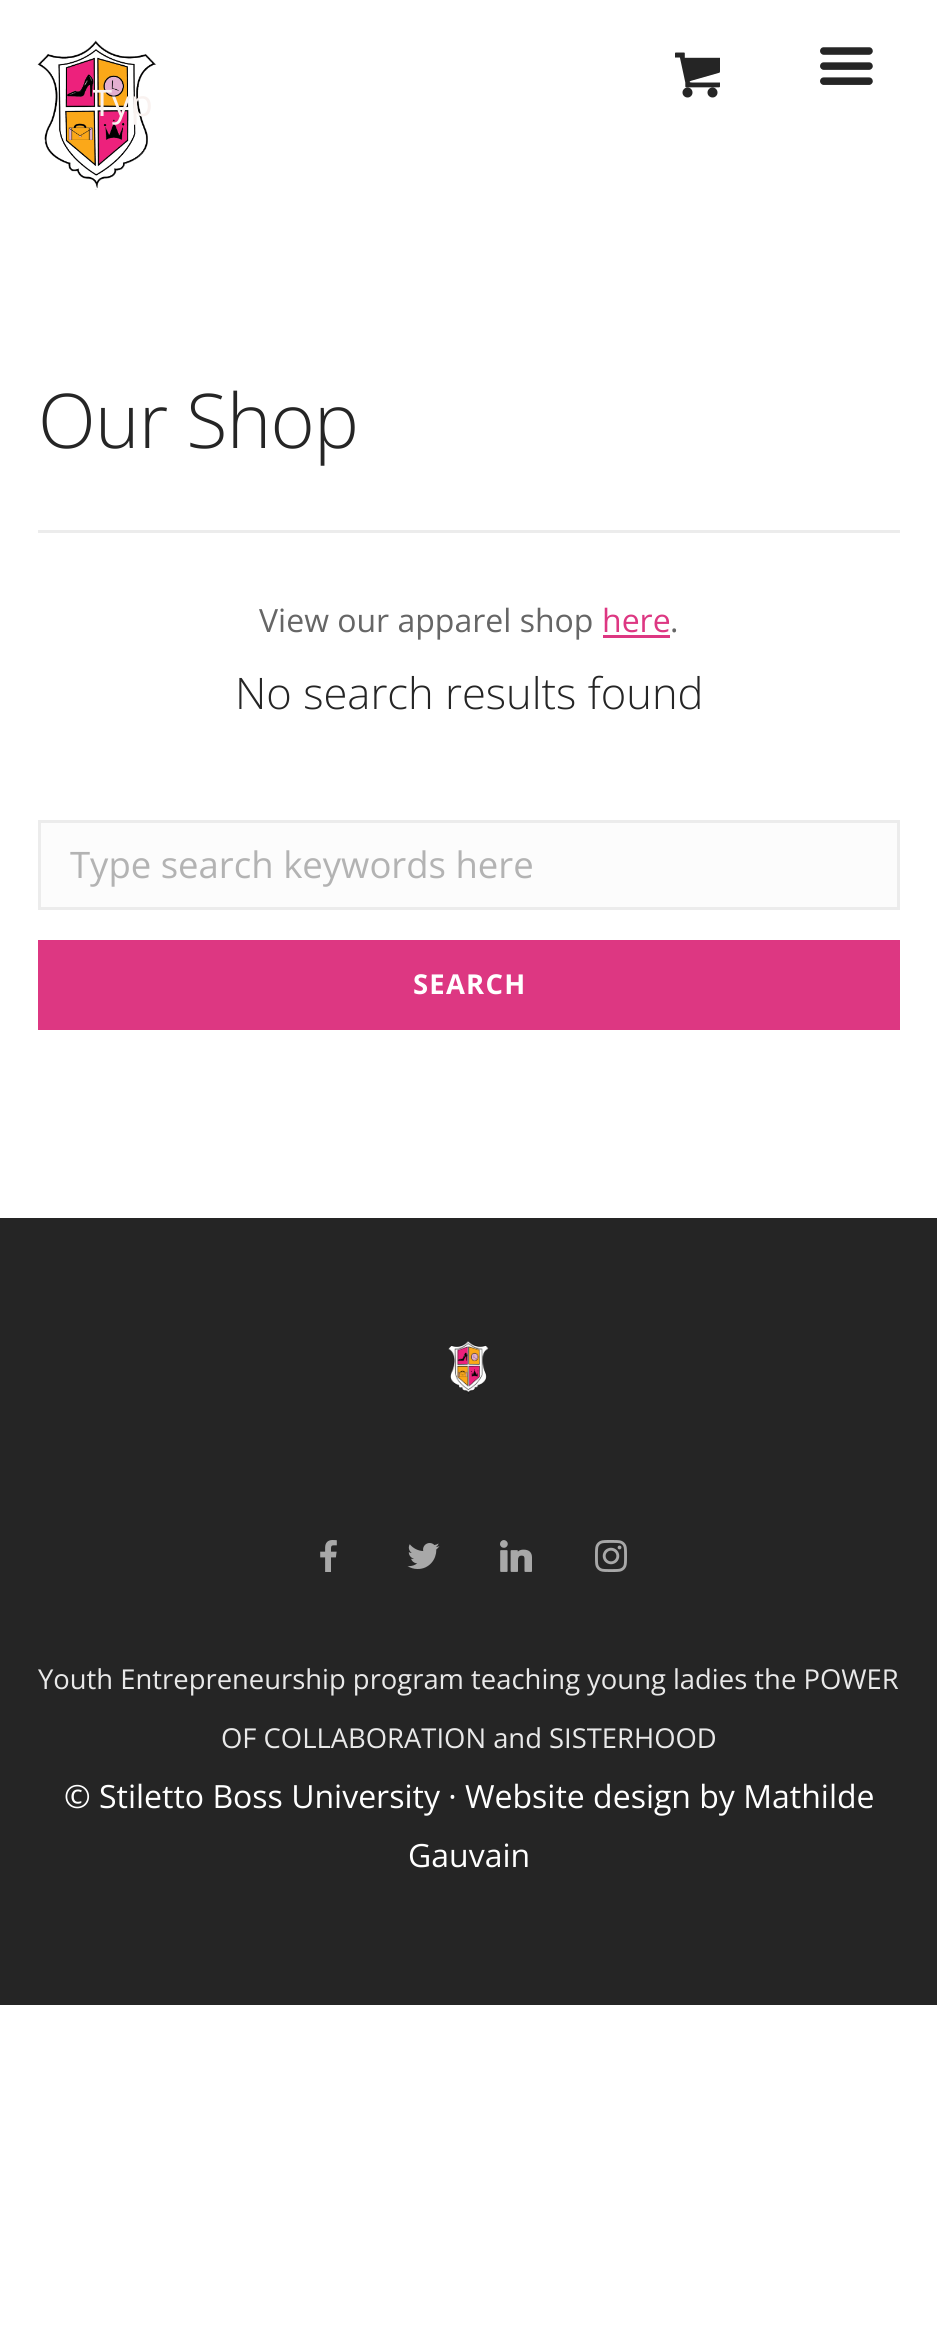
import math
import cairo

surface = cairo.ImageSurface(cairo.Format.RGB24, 937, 2333)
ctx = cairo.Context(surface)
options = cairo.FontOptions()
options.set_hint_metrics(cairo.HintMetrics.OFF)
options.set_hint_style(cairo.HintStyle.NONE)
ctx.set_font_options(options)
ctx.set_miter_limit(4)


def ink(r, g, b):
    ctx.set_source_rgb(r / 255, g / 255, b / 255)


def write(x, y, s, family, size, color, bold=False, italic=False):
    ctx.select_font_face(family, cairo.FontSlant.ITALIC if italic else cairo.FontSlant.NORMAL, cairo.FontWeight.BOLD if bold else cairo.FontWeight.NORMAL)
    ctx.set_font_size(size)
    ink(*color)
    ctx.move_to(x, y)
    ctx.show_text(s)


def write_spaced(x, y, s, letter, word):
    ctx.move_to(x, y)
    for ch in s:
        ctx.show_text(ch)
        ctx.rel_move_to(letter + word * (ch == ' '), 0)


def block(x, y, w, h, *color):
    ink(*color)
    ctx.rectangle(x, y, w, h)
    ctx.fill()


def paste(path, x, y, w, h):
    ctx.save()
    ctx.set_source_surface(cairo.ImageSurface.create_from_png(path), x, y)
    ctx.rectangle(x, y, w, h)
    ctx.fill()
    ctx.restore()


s1 = dict(family="Open Sans", size=36.5, color=(249, 242, 240))
s2 = dict(family="Open Sans", size=32, color=(102, 102, 102))
s3 = dict(family="Open Sans", size=32, color=(221, 55, 130))
s4 = dict(family="Open Sans Light", size=43.5, color=(37, 37, 37))
s5 = dict(family="Open Sans", size=36.5, color=(179, 179, 179))
s6 = dict(family="Open Sans", size=27.4, color=(233, 233, 233))
s7 = dict(family="Open Sans", size=32, color=(255, 255, 255))

ink(255, 255, 255)
ctx.paint()
paste("pic1.png", 37, 40, 120, 150)
paste("pic2.png", 675, 52, 45, 46)
paste("pic3.png", 820, 47, 53, 38)
ctx.save()
ctx.rectangle(93, 78, 757, 50)
ctx.clip()
write(92, 116, "Typ", **s1)
ctx.restore()
ctx.select_font_face("Open Sans Light")
ctx.set_font_size(75.5)
ink(37, 37, 37)
write_spaced(38, 448, "Our Shop", -0.75, 0)
block(38, 530, 862, 3, 236, 236, 236)
write(259, 632, "View our apparel shop", **s2)
write(602, 632, "here", **s3)
block(603, 635, 67, 3, 221, 55, 130)
write(670, 632, ".", **s2)
write(235, 709, "No search results found", **s4)
ink(252, 252, 252)
ctx.rectangle(39.5, 821.5, 859, 87)
ctx.fill_preserve()
ink(236, 236, 236)
ctx.set_line_width(3)
ctx.stroke()
write(70, 878, "Type search keywords here", **s5)
block(38, 940, 862, 90, 221, 55, 130)
ctx.select_font_face("Open Sans", cairo.FontSlant.NORMAL, cairo.FontWeight.BOLD)
ctx.set_font_size(27.4)
ink(255, 255, 255)
write_spaced(413, 994, "SEARCH", 1.25, 0)
block(0, 1218, 937, 787, 37, 37, 37)
paste("pic4.png", 448, 1341, 41, 53)
paste("pic5.png", 320, 1540, 17, 32)
paste("pic6.png", 407, 1543, 33, 26)
paste("pic7.png", 500, 1540, 32, 32)
paste("pic8.png", 595, 1540, 32, 32)
write(38, 1689, "Youth Entrepreneurship program teaching young ladies the POWER", **s6)
write(221, 1748, "OF COLLABORATION and SISTERHOOD", **s6)
write(64, 1808, "© Stiletto Boss University · Website design by Mathilde", **s7)
write(408, 1867, "Gauvain", **s7)
surface.write_to_png("screenshot.png")
